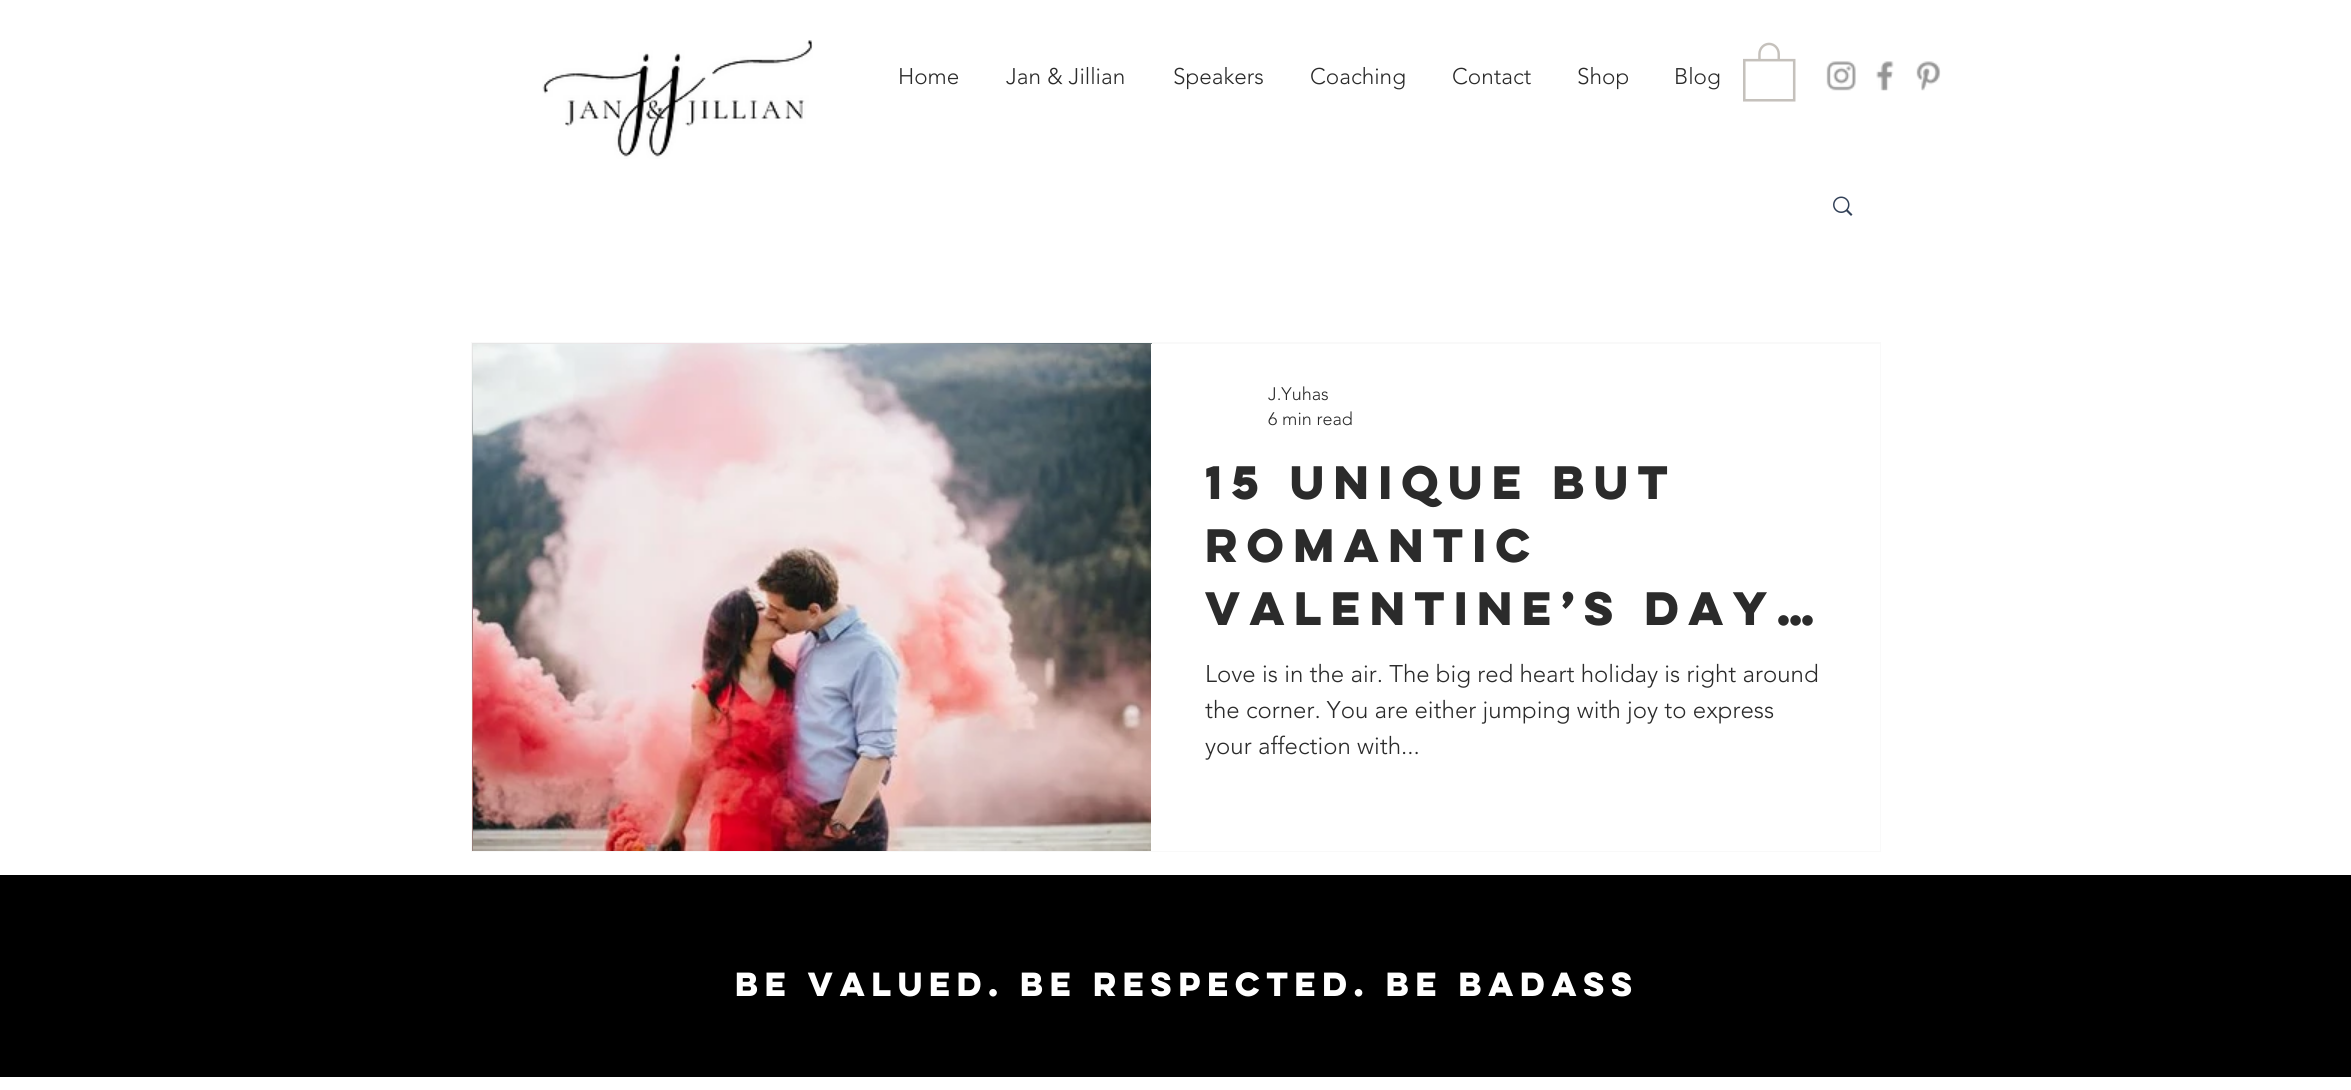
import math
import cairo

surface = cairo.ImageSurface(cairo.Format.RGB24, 2351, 1090)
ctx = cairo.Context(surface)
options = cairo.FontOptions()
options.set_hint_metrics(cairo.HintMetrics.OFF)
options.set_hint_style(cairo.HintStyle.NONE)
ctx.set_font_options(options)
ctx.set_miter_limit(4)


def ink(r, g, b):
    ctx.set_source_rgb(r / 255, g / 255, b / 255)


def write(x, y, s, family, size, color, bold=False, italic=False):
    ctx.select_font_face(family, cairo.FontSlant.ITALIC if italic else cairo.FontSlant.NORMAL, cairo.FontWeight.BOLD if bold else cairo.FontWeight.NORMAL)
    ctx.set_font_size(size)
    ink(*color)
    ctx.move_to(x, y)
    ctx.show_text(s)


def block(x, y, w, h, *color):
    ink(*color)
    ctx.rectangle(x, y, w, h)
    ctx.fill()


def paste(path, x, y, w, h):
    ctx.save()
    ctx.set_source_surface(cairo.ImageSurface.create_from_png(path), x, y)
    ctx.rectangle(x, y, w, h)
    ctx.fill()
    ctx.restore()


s1 = dict(family="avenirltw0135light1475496 Light", size=22.5, color=(43, 43, 43))
s2 = dict(family="avenirltw0135light1475496 Light", size=18, color=(43, 43, 43))
s3 = dict(family="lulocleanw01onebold", size=42, color=(43, 43, 43), bold=True)
s4 = dict(family="avenirltw0135light1475496 Light", size=24, color=(43, 43, 43))
s5 = dict(family="lulocleanw01onebold", size=30, color=(255, 255, 255), bold=True)

ink(255, 255, 255)
ctx.paint()
paste("pic1.png", 542, 40, 271, 119)
write(898, 84, "Home", **s1)
write(1006, 84, "Jan & Jillian", **s1)
write(1173, 84, "Speakers", **s1)
write(1310, 84, "Coaching", **s1)
write(1452, 84, "Contact", **s1)
write(1577, 84, "Shop", **s1)
write(1674, 84, "Blog", **s1)
paste("pic2.png", 1743, 42, 53, 60)
paste("pic3.png", 1826, 61, 30, 30)
paste("pic4.png", 1876, 61, 18, 30)
paste("pic5.png", 1916, 61, 25, 30)
paste("pic6.png", 1833, 196, 20, 20)
ctx.rectangle(472, 343, 1408, 508)
ink(249, 249, 249)
ctx.stroke()
paste("pic7.png", 472, 343, 680, 508)
paste("pic8.png", 473, 344, 678, 507)
block(1151, 344, 729, 507, 255, 255, 255)
write(1268, 400, "J.Yuhas", **s2)
write(1268, 425, "6 min read", **s2)
write(1205, 499, "15 Unique But", **s3)
write(1205, 562, "Romantic", **s3)
write(1205, 625, "Valentine’s Day…", **s3)
write(1205, 682, "Love is in the air. The big red heart holiday is right around", **s4)
write(1205, 718, "the corner. You are either jumping with joy to express", **s4)
write(1205, 754, "your affection with...", **s4)
block(0, 875, 2351, 202, 0, 0, 0)
write(735, 996, "Be valued. Be respected. Be badass", **s5)
surface.write_to_png("screenshot.png")
